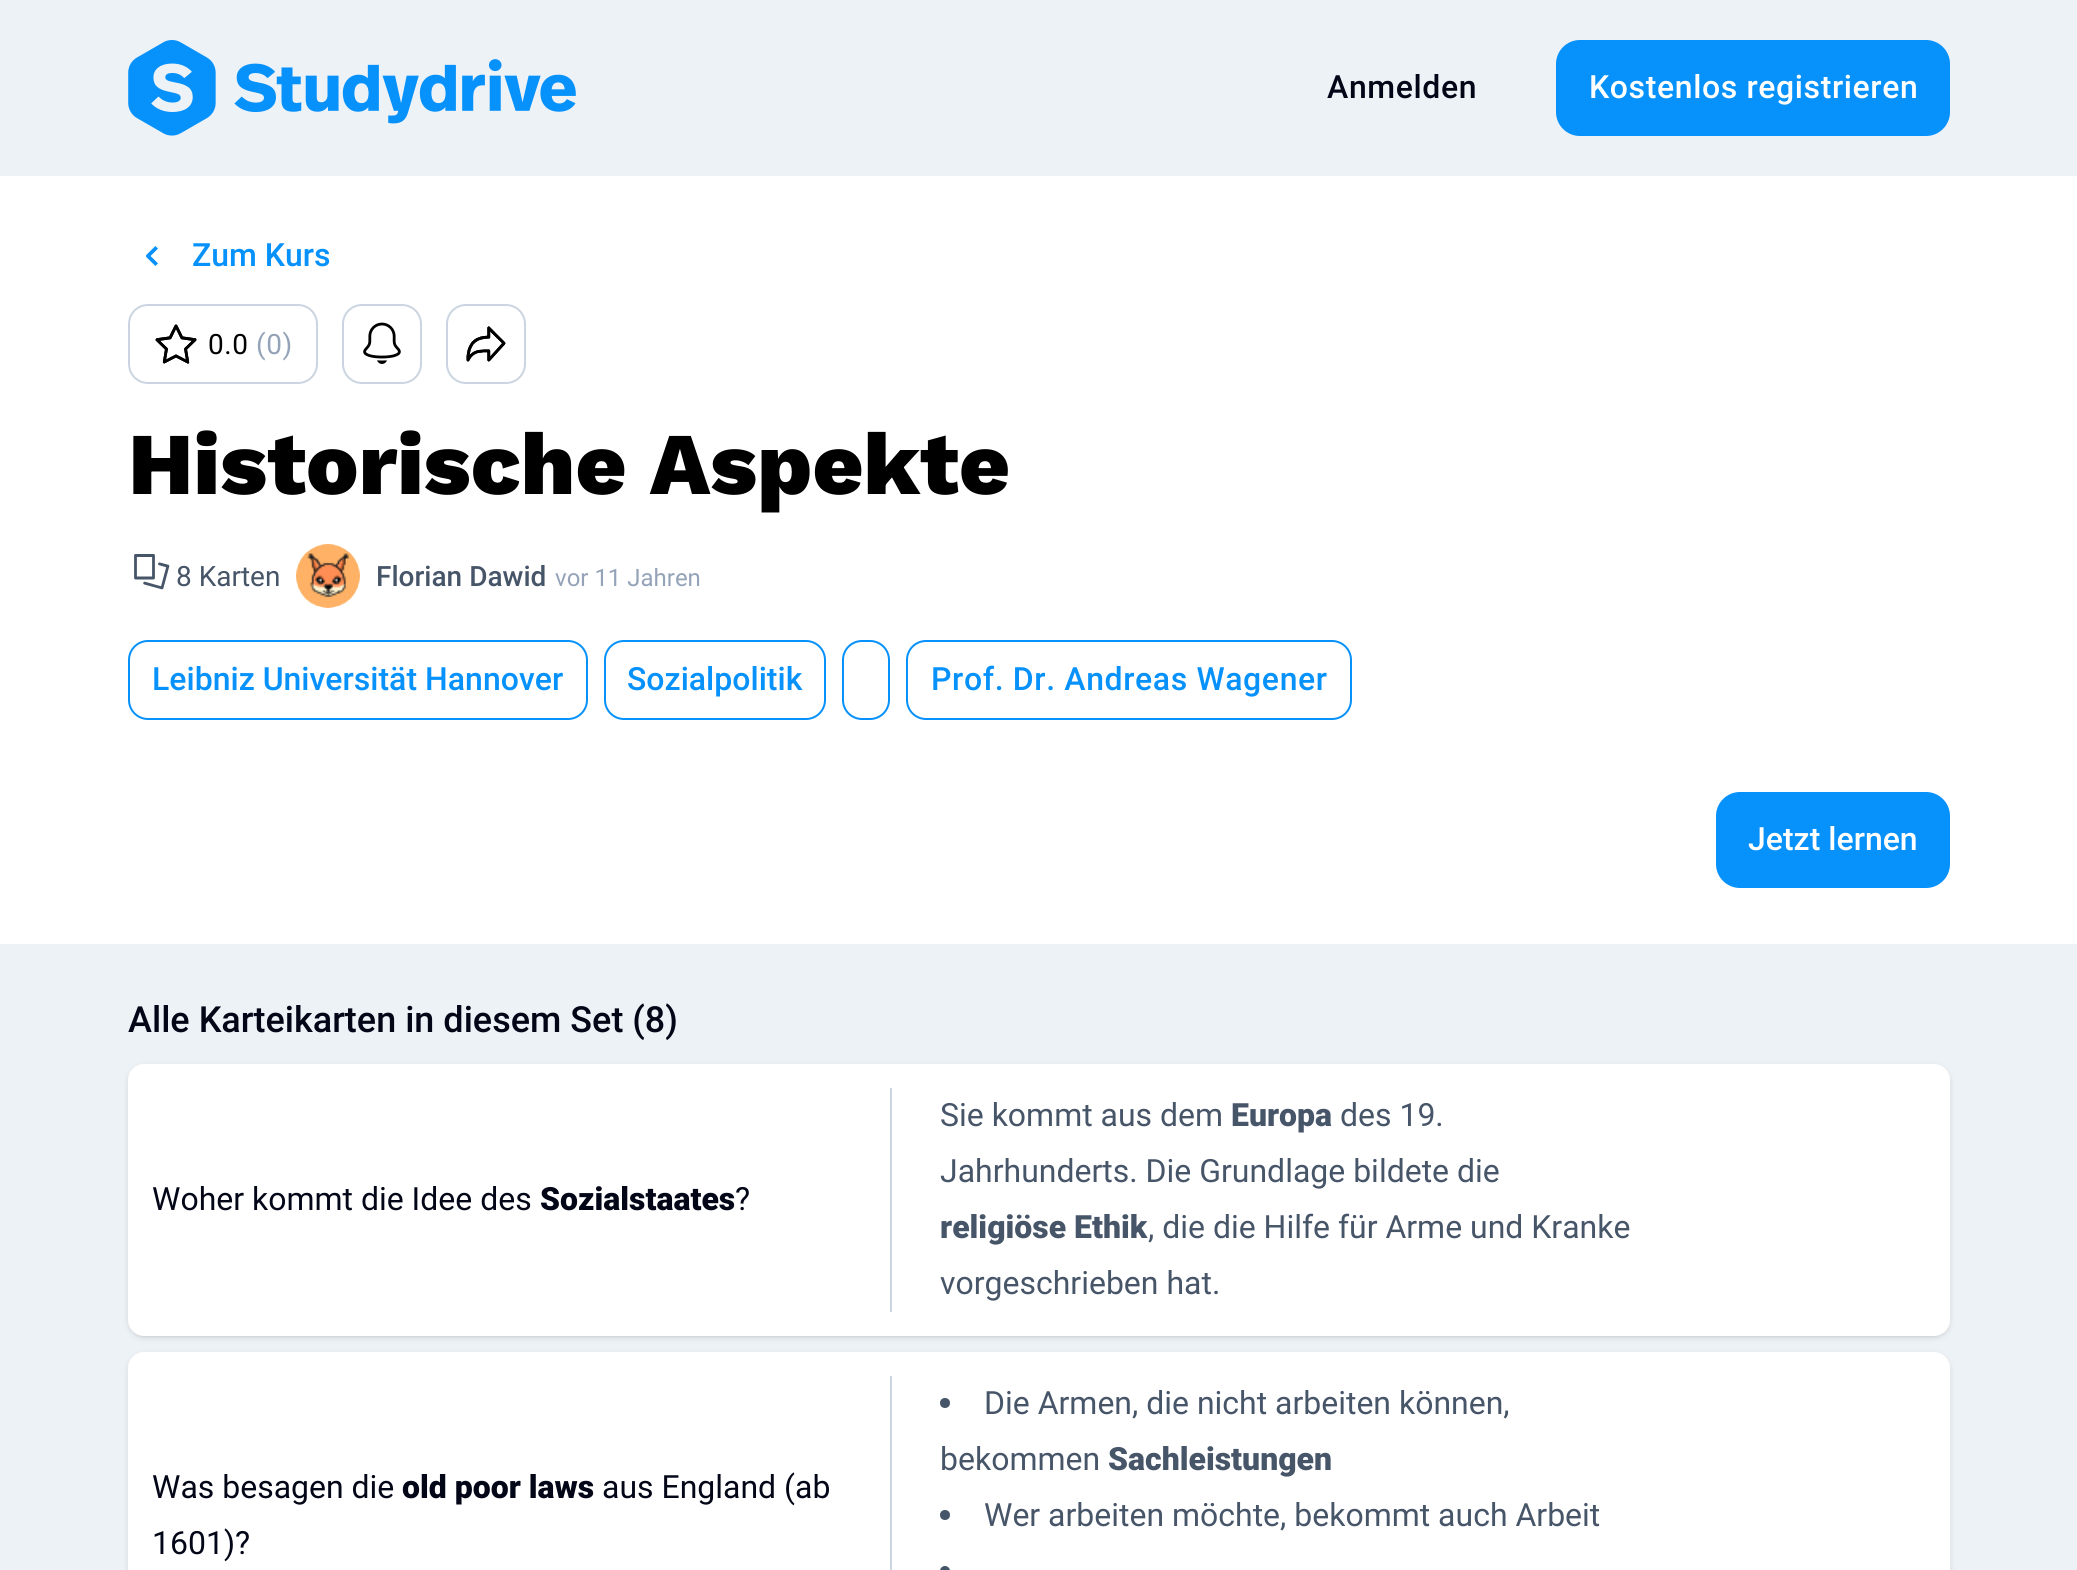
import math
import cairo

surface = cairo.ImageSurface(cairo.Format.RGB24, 2077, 1570)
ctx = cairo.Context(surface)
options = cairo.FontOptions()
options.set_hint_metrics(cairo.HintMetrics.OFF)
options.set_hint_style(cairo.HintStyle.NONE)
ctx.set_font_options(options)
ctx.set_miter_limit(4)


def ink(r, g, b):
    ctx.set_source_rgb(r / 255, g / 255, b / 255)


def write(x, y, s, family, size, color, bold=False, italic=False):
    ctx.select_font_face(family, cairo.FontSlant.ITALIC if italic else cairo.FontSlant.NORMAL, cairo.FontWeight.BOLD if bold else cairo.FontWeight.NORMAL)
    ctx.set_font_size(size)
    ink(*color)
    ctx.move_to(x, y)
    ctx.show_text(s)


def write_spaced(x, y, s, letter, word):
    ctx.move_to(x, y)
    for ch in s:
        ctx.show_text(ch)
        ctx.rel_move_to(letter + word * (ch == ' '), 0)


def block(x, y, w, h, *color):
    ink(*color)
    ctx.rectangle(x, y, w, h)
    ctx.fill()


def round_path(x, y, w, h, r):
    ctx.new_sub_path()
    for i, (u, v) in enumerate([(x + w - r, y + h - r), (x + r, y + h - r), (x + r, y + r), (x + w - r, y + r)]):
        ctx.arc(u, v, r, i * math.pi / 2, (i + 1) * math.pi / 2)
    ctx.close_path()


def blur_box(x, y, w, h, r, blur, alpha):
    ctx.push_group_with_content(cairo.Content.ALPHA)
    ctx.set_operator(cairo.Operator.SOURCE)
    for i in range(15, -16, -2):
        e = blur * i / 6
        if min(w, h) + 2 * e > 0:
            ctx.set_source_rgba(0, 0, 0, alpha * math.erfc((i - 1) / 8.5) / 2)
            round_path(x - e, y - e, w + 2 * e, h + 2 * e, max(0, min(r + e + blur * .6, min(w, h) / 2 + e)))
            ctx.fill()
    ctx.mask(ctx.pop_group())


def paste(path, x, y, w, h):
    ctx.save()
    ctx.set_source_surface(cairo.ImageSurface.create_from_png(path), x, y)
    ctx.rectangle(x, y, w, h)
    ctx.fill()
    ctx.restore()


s1 = dict(family="Roboto Medium", size=32, color=(6, 145, 251))
s2 = dict(family="Work Sans ExtraBold", size=88, color=(0, 0, 0))
s3 = dict(family="Roboto", size=28, color=(71, 85, 105))
s4 = dict(family="Roboto Medium", size=28, color=(71, 85, 105))
s5 = dict(family="Roboto", size=24, color=(148, 163, 184))
s6 = dict(family="Roboto Medium", size=32, color=(255, 255, 255))
s7 = dict(family="Roboto Medium", size=36, color=(2, 6, 23))
s8 = dict(family="Roboto", size=32, color=(2, 6, 23))
s9 = dict(family="Roboto Black", size=32, color=(2, 6, 23))
s10 = dict(family="Roboto", size=32, color=(71, 85, 105))
s11 = dict(family="Roboto Black", size=32, color=(71, 85, 105))

ink(237, 242, 247)
ctx.paint()
paste("pic1.png", 128, 40, 448, 96)
ctx.select_font_face("Roboto Medium")
ctx.set_font_size(32)
ink(2, 6, 23)
write_spaced(1327, 98, "Anmelden", 0.6, 0)
ink(6, 145, 251)
round_path(1556, 40, 394, 96, 24)
ctx.fill()
ink(255, 255, 255)
write_spaced(1589, 98, "Kostenlos registrieren", 0.6, 0)
block(0, 176, 2077, 768, 255, 255, 255)
paste("pic2.png", 146, 246, 12, 20)
write(192, 266, "Zum Kurs", **s1)
round_path(129, 305, 188, 78, 19)
ink(203, 213, 225)
ctx.stroke()
paste("pic3.png", 155, 324, 42, 40)
ctx.select_font_face("Roboto")
ctx.set_font_size(28)
ink(0, 0, 0)
write_spaced(208, 354, "0.0", 0.6, 0)
ink(148, 163, 184)
write_spaced(256, 354, "(0)", 0.6, 0)
round_path(343, 305, 78, 78, 19)
ink(203, 213, 225)
ctx.stroke()
paste("pic4.png", 363, 322, 38, 42)
round_path(447, 305, 78, 78, 19)
ctx.stroke()
paste("pic5.png", 466, 326, 40, 36)
write(128, 494, "Historische Aspekte", **s2)
paste("pic6.png", 134, 554, 36, 36)
write(176, 586, "8 Karten", **s3)
paste("pic7.png", 296, 544, 64, 64)
write(376, 586, "Florian Dawid", **s4)
write(555, 586, "vor 11 Jahren", **s5)
round_path(129, 641, 458, 78, 19)
ink(6, 145, 251)
ctx.stroke()
write(152, 690, "Leibniz Universität Hannover", **s1)
round_path(605, 641, 220, 78, 19)
ctx.stroke()
write(627, 690, "Sozialpolitik", **s1)
round_path(843, 641, 46, 78, 19)
ctx.stroke()
round_path(907, 641, 444, 78, 19)
ctx.stroke()
write_spaced(931, 690, "Prof. Dr. Andreas Wagener", 0.6, 0)
round_path(1716, 792, 234, 96, 24)
ctx.fill()
write(1748, 850, "Jetzt lernen", **s6)
write(128, 1032, "Alle Karteikarten in diesem Set (8)", **s7)
ink(0, 0, 0)
blur_box(130, 1068, 1818, 268, 14, 2, 0.1)
blur_box(128, 1066, 1822, 272, 16, 3, 0.1)
ink(255, 255, 255)
round_path(128, 1064, 1822, 272, 16)
ctx.fill()
write(152, 1210, "Woher kommt die Idee des", **s8)
write(540, 1210, "Sozialstaates", **s9)
write(735, 1210, "?", **s8)
block(890, 1088, 2, 224, 203, 213, 225)
write(940, 1126, "Sie kommt aus dem", **s10)
write(1231, 1126, "Europa", **s11)
write(1340, 1126, "des 19.", **s10)
write(940, 1182, "Jahrhunderts. Die Grundlage bildete die", **s10)
write(940, 1238, "religiöse Ethik", **s11)
write(1148, 1238, ", die die Hilfe für Arme und Kranke", **s10)
write(940, 1294, "vorgeschrieben hat.", **s10)
ink(0, 0, 0)
blur_box(128, 1354, 1822, 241, 16, 3, 0.1)
ink(255, 255, 255)
round_path(128, 1352, 1822, 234, 16)
ctx.fill()
write(152, 1498, "Was besagen die", **s8)
write(402, 1498, "old poor laws", **s9)
write(602, 1498, "aus England (ab", **s8)
write(152, 1554, "1601)?", **s8)
block(890, 1376, 2, 194, 203, 213, 225)
ink(71, 85, 105)
ctx.new_path()
ctx.arc(945, 1403, 5, 0, 2 * math.pi)
ctx.fill()
write(984, 1414, "Die Armen, die nicht arbeiten können,", **s10)
write(940, 1470, "bekommen", **s10)
write(1108, 1470, "Sachleistungen", **s11)
ctx.new_path()
ctx.arc(945, 1515, 5, 0, 2 * math.pi)
ctx.fill()
write(984, 1526, "Wer arbeiten möchte, bekommt auch Arbeit", **s10)
round_path(940, 1566, 10, 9, 5)
ctx.fill()
surface.write_to_png("screenshot.png")
